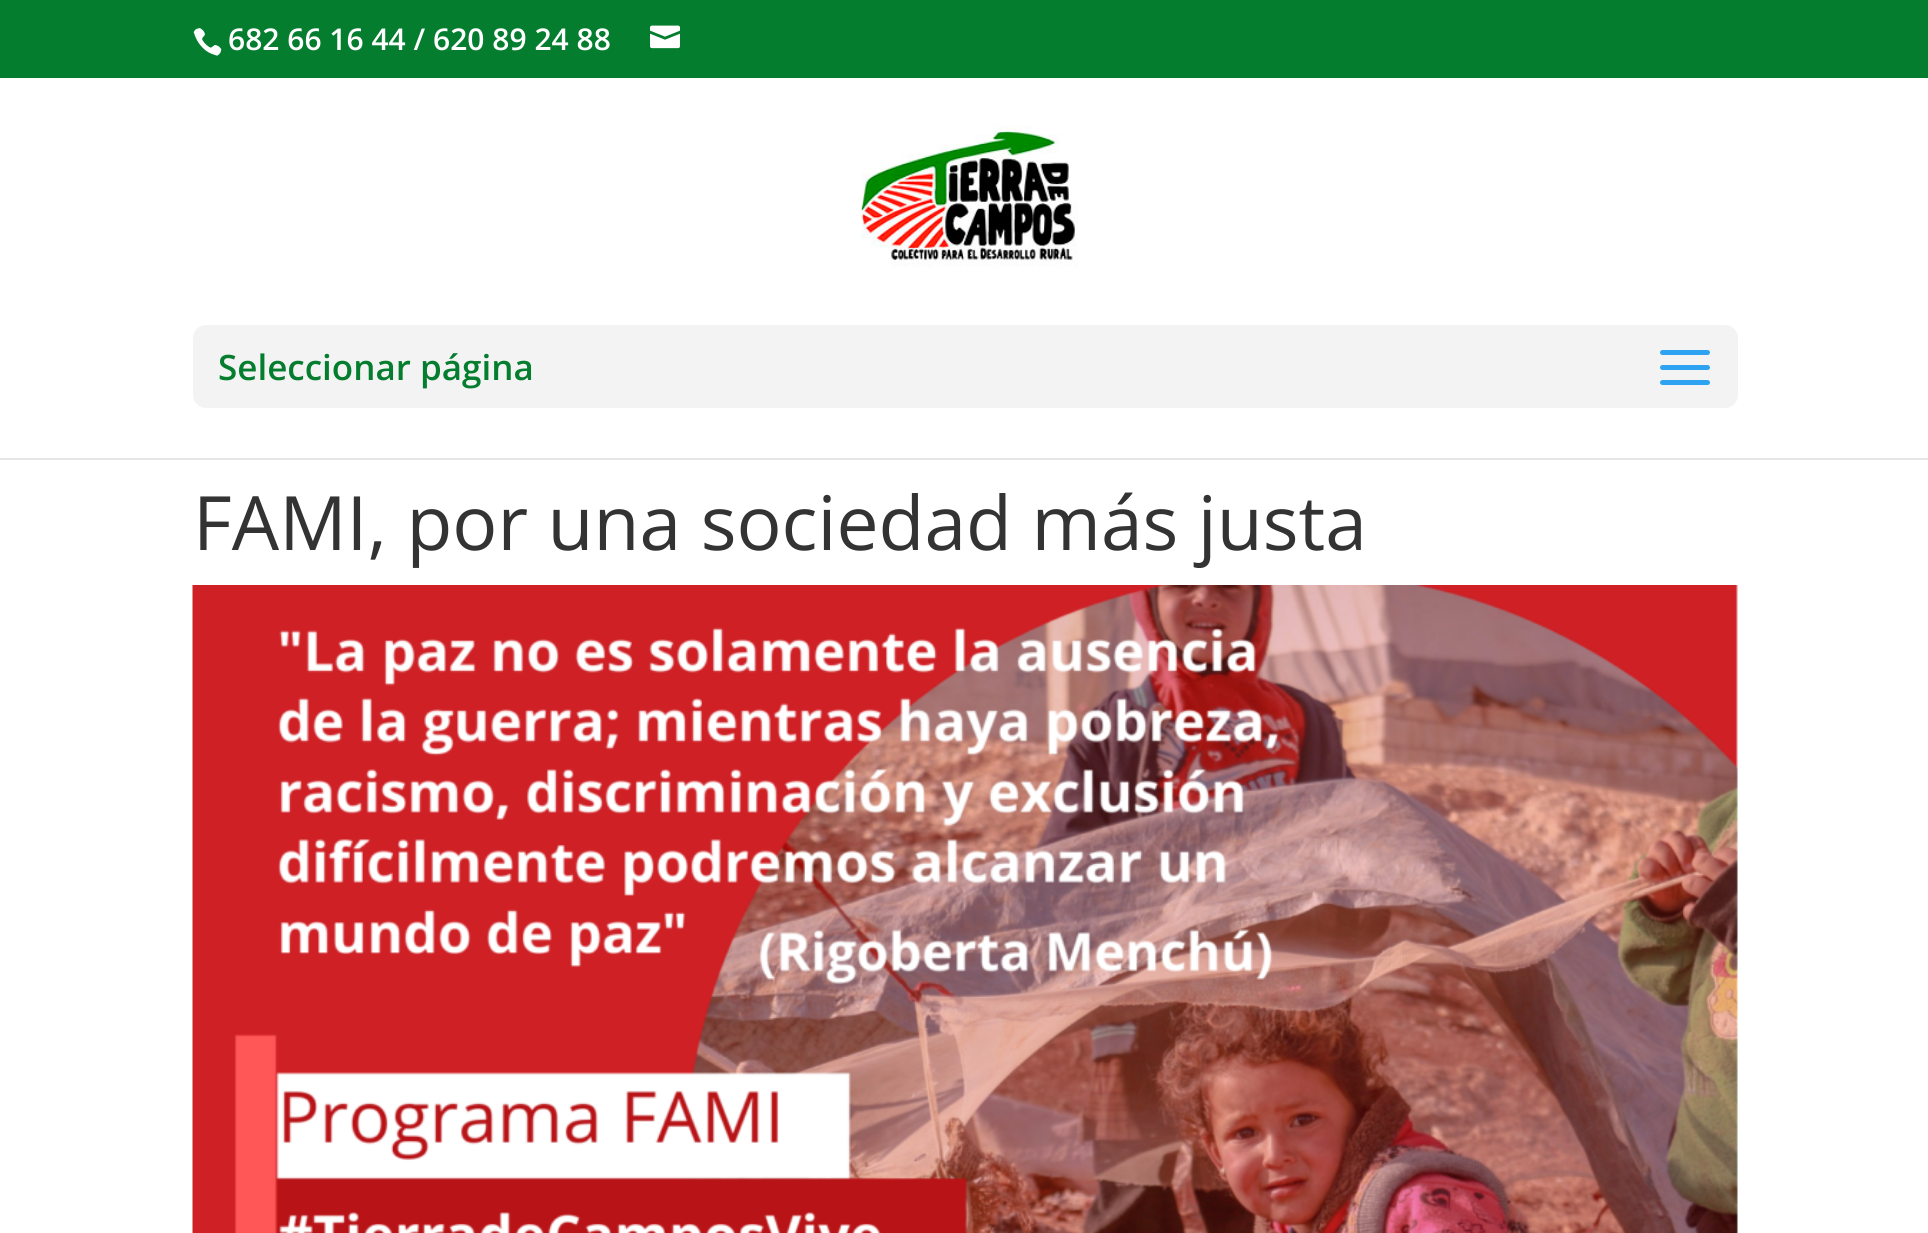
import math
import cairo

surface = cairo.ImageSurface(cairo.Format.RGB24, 1928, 1233)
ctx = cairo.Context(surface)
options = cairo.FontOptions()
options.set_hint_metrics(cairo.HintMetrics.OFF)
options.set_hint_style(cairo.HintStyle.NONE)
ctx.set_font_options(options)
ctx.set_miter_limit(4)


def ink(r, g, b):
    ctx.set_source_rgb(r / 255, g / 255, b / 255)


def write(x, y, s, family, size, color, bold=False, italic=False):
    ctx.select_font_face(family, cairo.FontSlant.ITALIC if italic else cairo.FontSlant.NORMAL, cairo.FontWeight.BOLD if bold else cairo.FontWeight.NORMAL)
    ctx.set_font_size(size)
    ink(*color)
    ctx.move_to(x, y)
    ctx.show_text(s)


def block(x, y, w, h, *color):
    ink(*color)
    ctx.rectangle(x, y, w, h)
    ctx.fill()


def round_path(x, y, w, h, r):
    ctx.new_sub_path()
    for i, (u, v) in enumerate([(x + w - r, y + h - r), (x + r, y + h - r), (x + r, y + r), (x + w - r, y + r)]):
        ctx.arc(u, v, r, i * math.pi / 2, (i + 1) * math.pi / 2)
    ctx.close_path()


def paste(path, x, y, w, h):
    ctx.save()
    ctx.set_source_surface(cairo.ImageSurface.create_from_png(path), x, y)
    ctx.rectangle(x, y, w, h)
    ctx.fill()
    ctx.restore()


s1 = dict(family="Open Sans SemiBold", size=30, color=(255, 255, 255))
s2 = dict(family="Open Sans SemiBold", size=35, color=(5, 125, 47))
s3 = dict(family="Open Sans", size=75, color=(51, 51, 51))

ink(255, 255, 255)
ctx.paint()
block(0, 0, 1928, 78, 5, 125, 47)
paste("pic1.png", 193, 28, 29, 28)
write(228, 50, "682 66 16 44 / 620 89 24 88", **s1)
paste("pic2.png", 650, 25, 30, 24)
block(0, 458, 1928, 2, 230, 230, 230)
paste("pic3.png", 860, 125, 218, 142)
ink(243, 243, 243)
round_path(193, 325, 1545, 83, 13)
ctx.fill()
write(218, 380, "Seleccionar página", **s2)
paste("pic4.png", 1660, 350, 50, 35)
write(193, 550, "FAMI, por una sociedad más justa", **s3)
paste("pic5.png", 192, 585, 1546, 648)
surface.write_to_png("screenshot.png")
